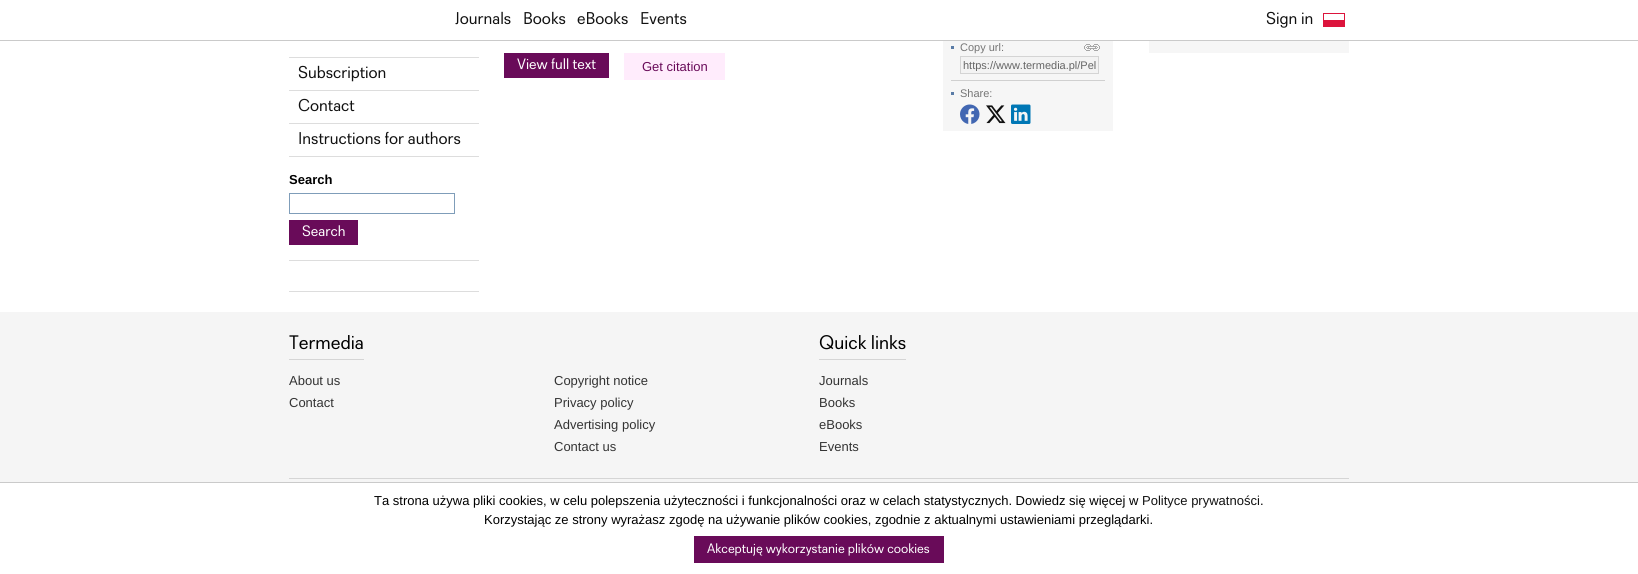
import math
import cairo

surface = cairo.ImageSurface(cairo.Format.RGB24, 1638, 574)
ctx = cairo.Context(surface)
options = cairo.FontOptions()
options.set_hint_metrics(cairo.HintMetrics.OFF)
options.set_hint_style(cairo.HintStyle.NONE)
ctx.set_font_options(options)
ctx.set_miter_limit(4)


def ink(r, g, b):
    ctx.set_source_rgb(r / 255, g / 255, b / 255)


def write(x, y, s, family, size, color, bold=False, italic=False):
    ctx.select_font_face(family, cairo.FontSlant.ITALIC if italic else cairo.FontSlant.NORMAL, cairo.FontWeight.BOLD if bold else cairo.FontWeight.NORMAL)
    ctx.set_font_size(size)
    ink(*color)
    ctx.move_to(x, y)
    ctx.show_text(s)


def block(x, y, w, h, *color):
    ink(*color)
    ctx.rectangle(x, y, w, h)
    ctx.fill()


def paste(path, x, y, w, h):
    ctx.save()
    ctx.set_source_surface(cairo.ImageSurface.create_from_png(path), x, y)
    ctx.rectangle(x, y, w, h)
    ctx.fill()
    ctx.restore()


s1 = dict(family="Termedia", size=17, color=(17, 17, 17))
s2 = dict(family="Liberation Sans", size=13, color=(0, 0, 0), bold=True)
s3 = dict(family="Termedia", size=15, color=(255, 255, 255))
s4 = dict(family="Liberation Sans", size=13, color=(105, 11, 89))
s5 = dict(family="Liberation Sans", size=11, color=(117, 117, 117))
s6 = dict(family="Liberation Sans", size=11, color=(101, 101, 101))
s7 = dict(family="Termedia", size=19.5, color=(0, 0, 0))
s8 = dict(family="Liberation Sans", size=13, color=(51, 51, 51))
s9 = dict(family="Liberation Sans", size=13, color=(0, 0, 0))
s10 = dict(family="Liberation Sans", size=13, color=(17, 17, 17))
s11 = dict(family="Termedia", size=13.6, color=(255, 255, 255))

ink(245, 245, 245)
ctx.paint()
block(0, 0, 1638, 40, 255, 255, 255)
block(0, 40, 1638, 1, 202, 202, 202)
write(455, 24, "Journals", **s1)
write(523, 24, "Books", **s1)
write(577, 24, "eBooks", **s1)
write(640, 24, "Events", **s1)
write(1266, 24, "Sign in", **s1)
ctx.rectangle(1323.5, 13.5, 21, 13)
ink(220, 20, 60)
ctx.set_line_width(1)
ctx.stroke()
block(1324, 20, 20, 6, 220, 20, 60)
block(0, 41, 1638, 271, 255, 255, 255)
block(289, 57, 190, 1, 221, 221, 221)
block(289, 90, 190, 1, 221, 221, 221)
write(298, 78, "Subscription", **s1)
block(289, 123, 190, 1, 221, 221, 221)
write(298, 111, "Contact", **s1)
block(289, 156, 190, 1, 221, 221, 221)
write(298, 144, "Instructions for authors", **s1)
block(289, 260, 190, 1, 221, 221, 221)
write(289, 184, "Search", **s2)
ctx.rectangle(289.5, 193.5, 165, 20)
ink(127, 157, 185)
ctx.stroke()
block(289, 220, 69, 25, 105, 11, 89)
write(302, 236, "Search", **s3)
block(289, 291, 190, 1, 221, 221, 221)
block(504, 53, 105, 25, 105, 11, 89)
write(517, 69, "View full text", **s3)
block(624, 53, 101, 27, 255, 236, 252)
write(642, 71, "Get citation", **s4)
block(943, 41, 170, 90, 246, 246, 246)
block(951, 46, 3, 3, 89, 123, 166)
block(951, 80, 154, 1, 208, 208, 208)
paste("pic1.png", 1084, 44, 16, 7)
write(960, 51, "Copy url:", **s5)
ink(243, 243, 243)
ctx.rectangle(960.5, 56.5, 138, 17)
ctx.fill_preserve()
ink(212, 212, 212)
ctx.stroke()
ctx.save()
ctx.rectangle(963, 59, 133, 12)
ctx.clip()
write(963, 69, "https://www.termedia.pl/Pel", **s6)
ctx.restore()
block(951, 92, 3, 3, 89, 123, 166)
write(960, 97, "Share:", **s5)
paste("pic2.png", 960, 104, 20, 20)
paste("pic3.png", 986, 105, 20, 19)
paste("pic4.png", 1011, 104, 20, 20)
block(1149, 41, 200, 12, 246, 246, 246)
block(289, 359, 75, 1, 213, 213, 213)
write(289, 349, "Termedia", **s7)
write(289, 385, "About us", **s8)
write(289, 407, "Contact", **s8)
write(554, 385, "Copyright notice", **s8)
write(554, 407, "Privacy policy", **s8)
write(554, 429, "Advertising policy", **s8)
write(554, 451, "Contact us", **s8)
block(819, 359, 87, 1, 213, 213, 213)
write(819, 349, "Quick links", **s7)
write(819, 385, "Journals", **s8)
write(819, 407, "Books", **s8)
write(819, 429, "eBooks", **s8)
write(819, 451, "Events", **s8)
block(289, 478, 1060, 1, 213, 213, 213)
block(0, 483, 1638, 91, 255, 255, 255)
block(0, 482, 1638, 1, 202, 202, 202)
write(374, 505, "Ta strona używa pliki cookies, w celu polepszenia użyteczności i funkcjonalności oraz w celach statystycznych. Dowiedz się więcej w", **s9)
write(1142, 505, "Polityce prywatności", **s10)
write(1260, 505, ".", **s9)
write(484, 524, "Korzystając ze strony wyrażasz zgodę na używanie plików cookies, zgodnie z aktualnymi ustawieniami przeglądarki.", **s9)
block(694, 536, 250, 27, 105, 11, 89)
write(707, 553, "Akceptuję wykorzystanie plików cookies", **s11)
surface.write_to_png("screenshot.png")
